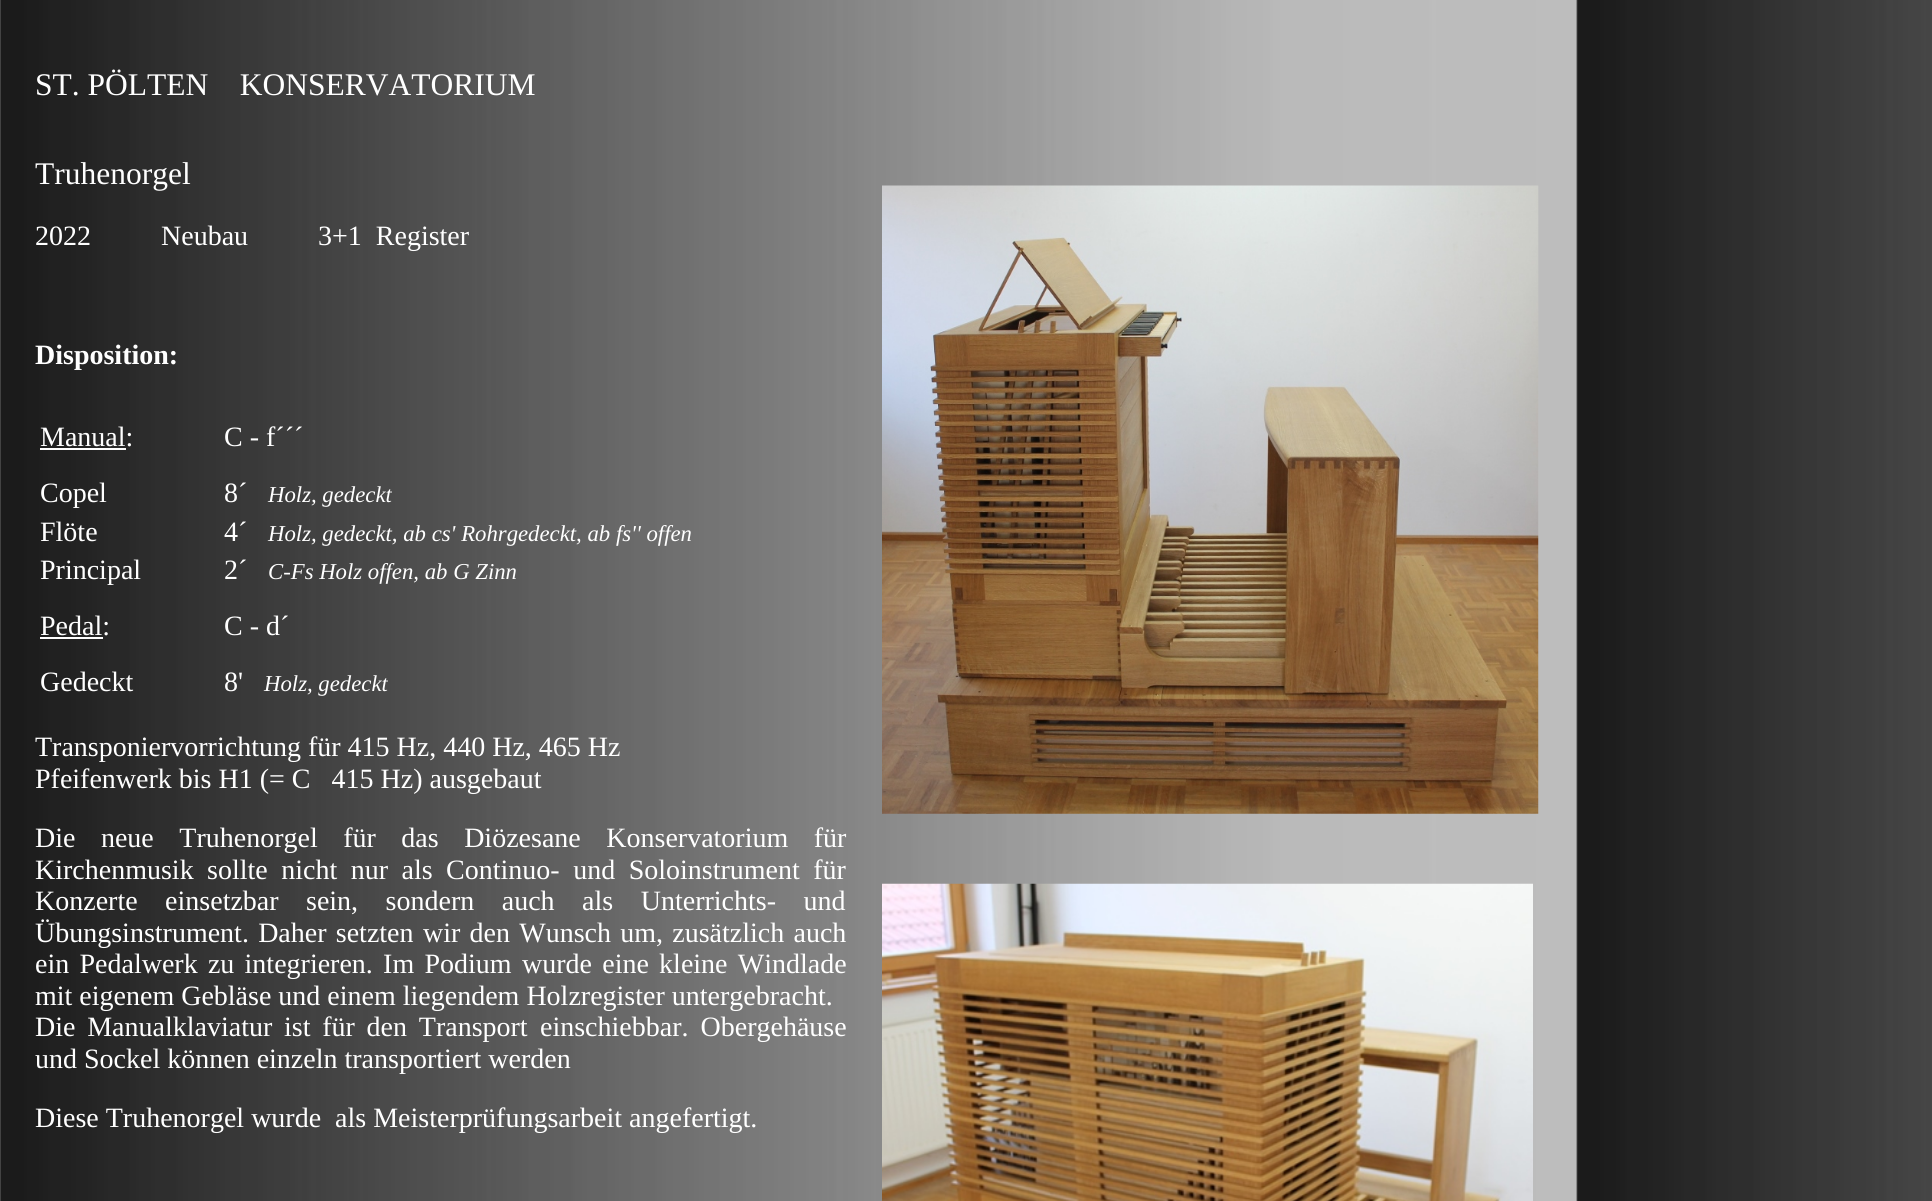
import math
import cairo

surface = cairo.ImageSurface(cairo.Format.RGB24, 1932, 1201)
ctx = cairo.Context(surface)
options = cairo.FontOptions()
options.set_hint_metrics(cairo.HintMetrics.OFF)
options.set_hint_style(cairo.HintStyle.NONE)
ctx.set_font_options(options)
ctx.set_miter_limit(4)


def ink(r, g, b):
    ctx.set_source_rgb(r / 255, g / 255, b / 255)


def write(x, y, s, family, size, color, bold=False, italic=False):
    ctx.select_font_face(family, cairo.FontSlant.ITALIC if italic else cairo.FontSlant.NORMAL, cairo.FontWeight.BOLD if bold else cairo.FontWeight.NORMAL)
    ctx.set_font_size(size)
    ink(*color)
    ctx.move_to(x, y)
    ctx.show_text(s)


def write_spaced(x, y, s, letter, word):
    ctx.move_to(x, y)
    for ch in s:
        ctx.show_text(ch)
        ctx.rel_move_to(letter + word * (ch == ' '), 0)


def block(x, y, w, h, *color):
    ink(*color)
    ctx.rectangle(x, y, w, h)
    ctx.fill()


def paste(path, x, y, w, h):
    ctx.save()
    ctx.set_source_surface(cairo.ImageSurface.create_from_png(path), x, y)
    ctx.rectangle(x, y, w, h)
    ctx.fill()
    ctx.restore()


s1 = dict(family="Liberation Serif", size=31.5, color=(255, 255, 255))
s2 = dict(family="Liberation Serif", size=28, color=(255, 255, 255))
s3 = dict(family="Liberation Serif", size=28, color=(255, 255, 255), bold=True)
s4 = dict(family="Liberation Serif", size=22.75, color=(255, 255, 255), italic=True)

ink(255, 255, 255)
ctx.paint()
paste("pic1.png", 0, 0, 1932, 1201)
write(35, 95, "ST. PÖLTEN    KONSERVATORIUM", **s1)
write(35, 184, "Truhenorgel", **s1)
write(35, 245, "2022          Neubau", **s2)
write(318, 245, "3+1  Register", **s2)
write(35, 364, "Disposition:", **s3)
write(40, 446, "Manual:", **s2)
block(40, 448, 86, 2, 255, 255, 255)
write(224, 446, "C - f´´´", **s2)
write(40, 502, "Copel", **s2)
write(224, 502, "8´", **s2)
write(268, 502, "Holz, gedeckt", **s4)
write(40, 541, "Flöte", **s2)
write(224, 541, "4´", **s2)
write(268, 541, "Holz, gedeckt, ab cs' Rohrgedeckt, ab fs'' offen", **s4)
write(40, 579, "Principal", **s2)
write(224, 579, "2´", **s2)
write(268, 579, "C-Fs Holz offen, ab G Zinn", **s4)
write(40, 635, "Pedal:", **s2)
block(40, 637, 63, 2, 255, 255, 255)
write(224, 635, "C - d´", **s2)
write(40, 691, "Gedeckt", **s2)
write(224, 691, "8'", **s2)
write(264, 691, "Holz, gedeckt", **s4)
write(35, 756, "Transponiervorrichtung für 415 Hz, 440 Hz, 465 Hz", **s2)
write(35, 788, "Pfeifenwerk bis H1 (= C   415 Hz) ausgebaut", **s2)
write_spaced(35, 847, "Die neue Truhenorgel für das Diözesane Konservatorium für", 0, 18.5)
write(35, 879, "Kirchenmusik", **s2)
write_spaced(207, 879, "sollte nicht nur als Continuo- und Soloinstrument für", 0, 6.5)
write_spaced(35, 910, "Konzerte einsetzbar", 0, 20.5)
write_spaced(306, 910, "sein, sondern auch als Unterrichts- und", 0, 20.5)
write_spaced(35, 942, "Übungsinstrument. Daher setzten", 0, 2.25)
write_spaced(423, 942, "wir den Wunsch um, zusätzlich auch", 0, 2.25)
write_spaced(35, 973, "ein Pedalwerk zu integrieren. Im Podium", 0, 3.25)
write_spaced(522, 973, "wurde eine kleine Windlade", 0, 3.25)
write(35, 1005, "mit eigenem Gebläse und einem liegendem Holzregister untergebracht.", **s2)
write_spaced(35, 1036, "Die Manualklaviatur ist für den Transport", 0, 4.75)
write_spaced(540, 1036, "einschiebbar. Obergehäuse", 0, 5)
write(35, 1068, "und Sockel können einzeln transportiert werden", **s2)
write(35, 1127, "Diese Truhenorgel wurde  als Meisterprüfungsarbeit angefertigt.", **s2)
paste("pic2.png", 882, 185, 657, 629)
paste("pic3.png", 882, 883, 651, 318)
surface.write_to_png("screenshot.png")
